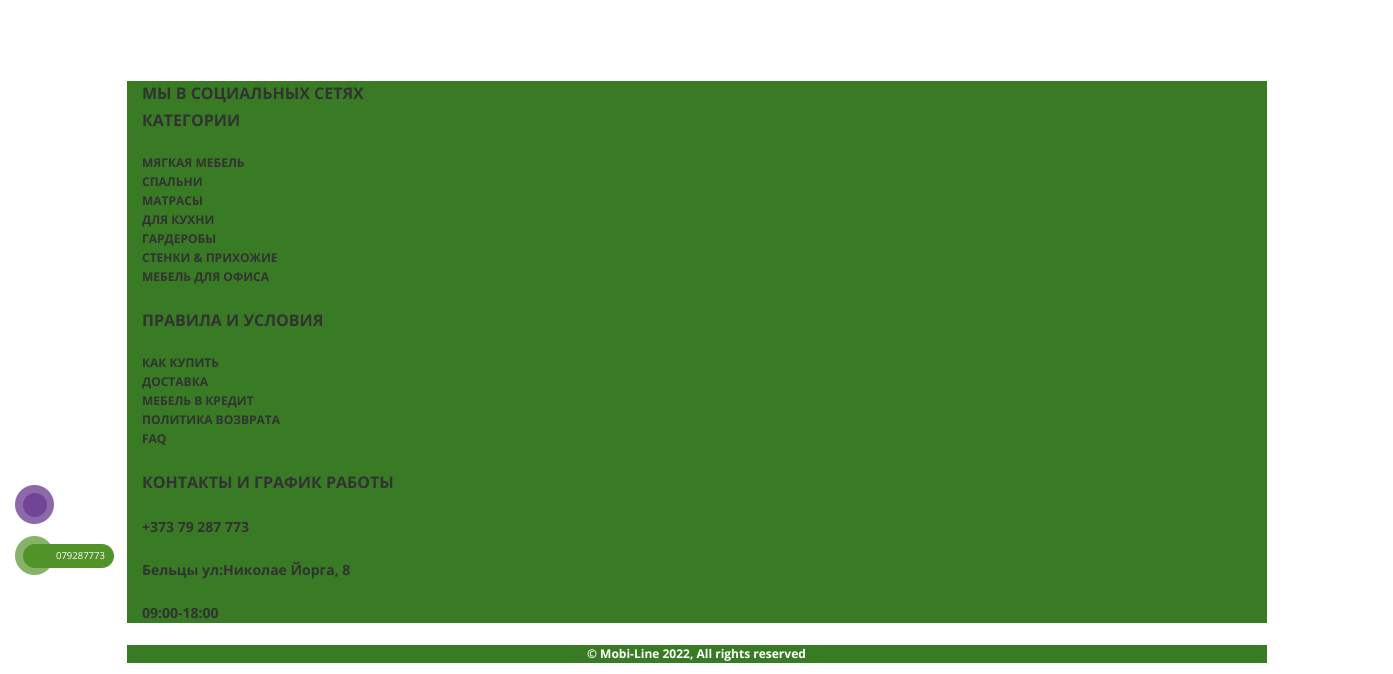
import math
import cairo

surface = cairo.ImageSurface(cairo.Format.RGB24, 1393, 674)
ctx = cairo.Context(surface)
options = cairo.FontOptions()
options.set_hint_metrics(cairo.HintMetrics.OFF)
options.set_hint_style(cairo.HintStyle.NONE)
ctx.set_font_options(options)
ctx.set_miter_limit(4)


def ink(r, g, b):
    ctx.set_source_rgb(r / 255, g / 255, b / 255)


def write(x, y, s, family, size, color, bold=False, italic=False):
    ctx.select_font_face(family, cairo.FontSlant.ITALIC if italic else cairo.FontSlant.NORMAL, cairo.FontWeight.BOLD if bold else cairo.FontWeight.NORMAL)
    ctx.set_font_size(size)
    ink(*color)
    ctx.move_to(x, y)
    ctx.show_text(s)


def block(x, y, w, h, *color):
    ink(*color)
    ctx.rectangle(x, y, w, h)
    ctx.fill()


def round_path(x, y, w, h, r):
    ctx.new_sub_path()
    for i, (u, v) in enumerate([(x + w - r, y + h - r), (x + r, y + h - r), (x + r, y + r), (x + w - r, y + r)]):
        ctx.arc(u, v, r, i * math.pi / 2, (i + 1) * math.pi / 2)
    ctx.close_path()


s1 = dict(family="Open Sans", size=9.5, color=(255, 255, 255))
s2 = dict(family="Open Sans", size=16, color=(50, 50, 50), bold=True)
s3 = dict(family="Open Sans", size=12, color=(50, 50, 50), bold=True)
s4 = dict(family="Open Sans", size=14, color=(50, 50, 50), bold=True)
s5 = dict(family="Open Sans", size=12, color=(255, 255, 255), bold=True)

ink(255, 255, 255)
ctx.paint()
ink(141, 105, 172)
ctx.arc(34.5, 504.5, 19.5, 0, 2 * math.pi)
ctx.fill()
ink(113, 68, 151)
ctx.arc(35, 505, 12, 0, 2 * math.pi)
ctx.fill()
ink(82, 147, 41)
round_path(26, 544, 88, 24, 12)
ctx.fill()
ctx.set_source_rgba(0.322, 0.576, 0.161, 0.7)
ctx.arc(34.5, 555.5, 19.5, 0, 2 * math.pi)
ctx.fill()
ink(82, 147, 41)
ctx.arc(35, 556, 12, 0, 2 * math.pi)
ctx.fill()
write(56, 559, "079287773", **s1)
block(127, 81, 1140, 542, 57, 122, 36)
write(142, 99, "МЫ В СОЦИАЛЬНЫХ СЕТЯХ", **s2)
write(142, 126, "КАТЕГОРИИ", **s2)
write(142, 167, "МЯГКАЯ МЕБЕЛЬ", **s3)
write(142, 186, "СПАЛЬНИ", **s3)
write(142, 205, "МАТРАСЫ", **s3)
write(142, 224, "ДЛЯ КУХНИ", **s3)
write(142, 243, "ГАРДЕРОБЫ", **s3)
write(142, 262, "СТЕНКИ & ПРИХОЖИЕ", **s3)
write(142, 281, "МЕБЕЛЬ ДЛЯ ОФИСА", **s3)
write(142, 326, "ПРАВИЛА И УСЛОВИЯ", **s2)
write(142, 367, "КАК КУПИТЬ", **s3)
write(142, 386, "ДОСТАВКА", **s3)
write(142, 405, "МЕБЕЛЬ В КРЕДИТ", **s3)
write(142, 424, "ПОЛИТИКА ВОЗВРАТА", **s3)
write(142, 443, "FAQ", **s3)
write(142, 488, "КОНТАКТЫ И ГРАФИК РАБОТЫ", **s2)
write(142, 532, "+373 79 287 773", **s4)
write(142, 575, "Бельцы ул:Николае Йорга, 8", **s4)
write(142, 618, "09:00-18:00", **s4)
block(127, 645, 1140, 18, 57, 122, 36)
write(587, 658, "© Mobi-Line 2022, All rights reserved", **s5)
surface.write_to_png("screenshot.png")
